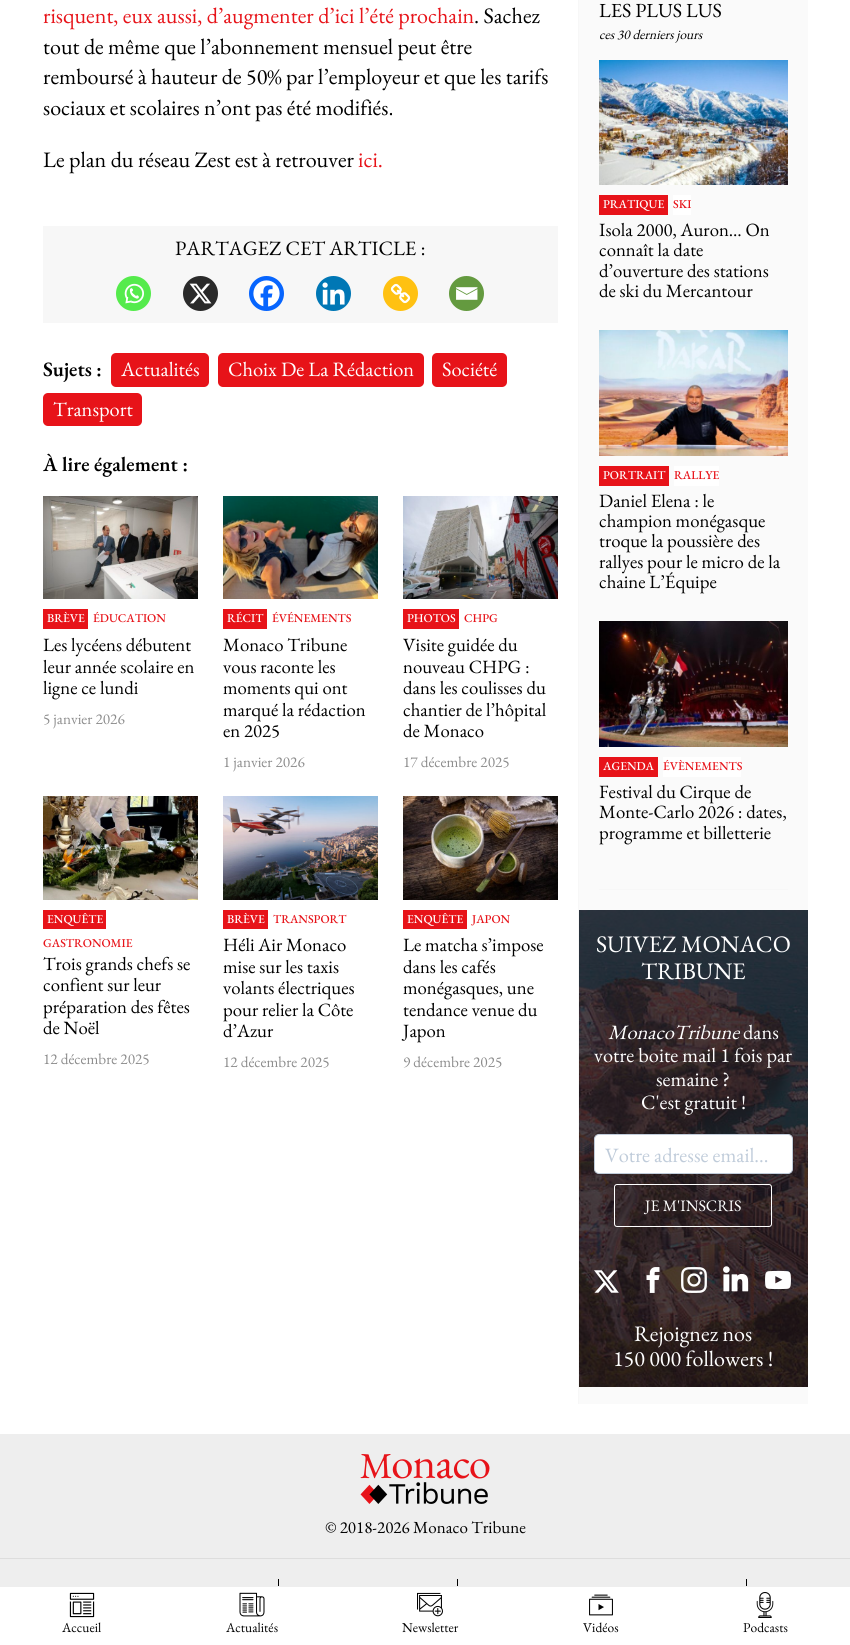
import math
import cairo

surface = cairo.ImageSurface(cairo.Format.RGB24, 850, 1645)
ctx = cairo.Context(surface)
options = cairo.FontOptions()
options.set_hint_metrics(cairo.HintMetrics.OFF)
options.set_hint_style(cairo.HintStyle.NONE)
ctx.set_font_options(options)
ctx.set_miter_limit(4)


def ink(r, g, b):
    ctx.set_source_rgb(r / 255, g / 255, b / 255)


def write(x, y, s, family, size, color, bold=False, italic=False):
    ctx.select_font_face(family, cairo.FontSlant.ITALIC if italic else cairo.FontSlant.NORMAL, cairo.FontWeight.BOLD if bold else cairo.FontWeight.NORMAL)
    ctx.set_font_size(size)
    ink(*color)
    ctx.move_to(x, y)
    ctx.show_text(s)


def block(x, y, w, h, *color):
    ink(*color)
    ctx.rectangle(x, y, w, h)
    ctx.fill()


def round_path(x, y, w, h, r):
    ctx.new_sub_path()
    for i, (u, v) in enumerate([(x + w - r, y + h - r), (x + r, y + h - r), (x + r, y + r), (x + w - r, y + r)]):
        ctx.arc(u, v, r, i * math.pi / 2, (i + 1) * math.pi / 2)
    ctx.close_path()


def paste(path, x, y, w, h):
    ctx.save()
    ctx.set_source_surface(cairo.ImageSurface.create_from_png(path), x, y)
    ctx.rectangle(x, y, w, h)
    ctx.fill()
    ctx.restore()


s1 = dict(family="EB Garamond", size=22.1, color=(231, 19, 25))
s2 = dict(family="EB Garamond", size=22.1, color=(0, 0, 0))
s3 = dict(family="EB Garamond", size=20.4, color=(0, 0, 0))
s4 = dict(family="EB Garamond SemiBold", size=20.4, color=(0, 0, 0))
s5 = dict(family="EB Garamond", size=20.4, color=(255, 255, 255))
s6 = dict(family="EB Garamond Medium", size=12, color=(255, 255, 255))
s7 = dict(family="EB Garamond Medium", size=12, color=(231, 19, 25))
s8 = dict(family="EB Garamond", size=18.75, color=(0, 0, 0))
s9 = dict(family="EB Garamond", size=15.25, color=(140, 140, 140))
s10 = dict(family="EB Garamond", size=20, color=(0, 0, 0))
s11 = dict(family="EB Garamond", size=13.5, color=(0, 0, 0), italic=True)
s12 = dict(family="EB Garamond", size=23.75, color=(255, 255, 255))
s13 = dict(family="EB Garamond", size=20.4, color=(255, 255, 255), italic=True)
s14 = dict(family="EB Garamond", size=20.4, color=(192, 204, 218))
s15 = dict(family="EB Garamond", size=16, color=(255, 255, 255))
s16 = dict(family="EB Garamond", size=22.1, color=(255, 255, 255))
s17 = dict(family="EB Garamond", size=17, color=(0, 0, 0))
s18 = dict(family="EB Garamond", size=13.5, color=(0, 0, 0))

ink(255, 255, 255)
ctx.paint()
write(43, 23, "risquent, eux aussi, d’augmenter d’ici l’été prochain", **s1)
write(474, 23, ". Sachez", **s2)
write(43, 54, "tout de même que l’abonnement mensuel peut être", **s2)
write(43, 84, "remboursé à hauteur de 50% par l’employeur et que les tarifs", **s2)
write(43, 115, "sociaux et scolaires n’ont pas été modifiés.", **s2)
write(43, 167, "Le plan du réseau Zest est à retrouver", **s2)
write(358, 167, "ici.", **s1)
block(43, 226, 515, 97, 247, 247, 247)
write(175, 255, "PARTAGEZ CET ARTICLE :", **s3)
ink(85, 235, 76)
ctx.new_path()
ctx.arc(133.5, 293.5, 17.5, 0, 2 * math.pi)
ctx.fill()
paste("pic1.png", 124, 283, 20, 21)
ink(42, 42, 42)
ctx.arc(200.5, 293.5, 17.5, 0, 2 * math.pi)
ctx.fill()
paste("pic2.png", 189, 283, 23, 21)
ink(7, 101, 254)
ctx.arc(266.5, 293.5, 17.5, 0, 2 * math.pi)
ctx.fill()
paste("pic3.png", 253, 280, 27, 27)
ink(0, 119, 181)
ctx.arc(333.5, 293.5, 17.5, 0, 2 * math.pi)
ctx.fill()
paste("pic4.png", 322, 282, 23, 23)
ink(255, 193, 18)
ctx.arc(400.5, 293.5, 17.5, 0, 2 * math.pi)
ctx.fill()
paste("pic5.png", 390, 283, 21, 21)
ink(100, 154, 63)
ctx.arc(466.5, 293.5, 17.5, 0, 2 * math.pi)
ctx.fill()
paste("pic6.png", 456, 287, 22, 13)
write(43, 376, "Sujets :", **s4)
ink(231, 19, 25)
round_path(111, 353, 98, 34, 5)
ctx.fill()
write(121, 376, "Actualités", **s5)
ink(231, 19, 25)
round_path(218, 353, 206, 34, 5)
ctx.fill()
write(228, 376, "Choix De La Rédaction", **s5)
ink(231, 19, 25)
round_path(432, 353, 75, 34, 5)
ctx.fill()
write(442, 376, "Société", **s5)
ink(231, 19, 25)
round_path(43, 393, 99, 33, 5)
ctx.fill()
write(53, 416, "Transport", **s5)
write(43, 471, "À lire également :", **s4)
paste("pic7.png", 43, 496, 155, 103)
block(43, 609, 45, 20, 231, 19, 25)
write(47, 622, "BRÈVE", **s6)
write(93, 622, "ÉDUCATION", **s7)
write(43, 651, "Les lycéens débutent", **s8)
write(43, 673, "leur année scolaire en", **s8)
write(43, 694, "ligne ce lundi", **s8)
write(43, 724, "5 janvier 2026", **s9)
paste("pic8.png", 223, 496, 155, 103)
block(223, 609, 44, 20, 231, 19, 25)
write(227, 622, "RÉCIT", **s6)
write(272, 622, "ÉVÉNEMENTS", **s7)
write(223, 651, "Monaco Tribune", **s8)
write(223, 673, "vous raconte les", **s8)
write(223, 694, "moments qui ont", **s8)
write(223, 716, "marqué la rédaction", **s8)
write(223, 737, "en 2025", **s8)
write(223, 767, "1 janvier 2026", **s9)
paste("pic9.png", 403, 496, 155, 103)
block(403, 609, 56, 20, 231, 19, 25)
write(407, 622, "PHOTOS", **s6)
write(464, 622, "CHPG", **s7)
write(403, 651, "Visite guidée du", **s8)
write(403, 673, "nouveau CHPG :", **s8)
write(403, 694, "dans les coulisses du", **s8)
write(403, 716, "chantier de l’hôpital", **s8)
write(403, 737, "de Monaco", **s8)
write(403, 767, "17 décembre 2025", **s9)
paste("pic10.png", 43, 796, 155, 104)
block(43, 910, 63, 19, 231, 19, 25)
write(47, 923, "ENQUÊTE", **s6)
write(43, 947, "GASTRONOMIE", **s7)
write(43, 970, "Trois grands chefs se", **s8)
write(43, 991, "confient sur leur", **s8)
write(43, 1013, "préparation des fêtes", **s8)
write(43, 1034, "de Noël", **s8)
write(43, 1064, "12 décembre 2025", **s9)
paste("pic11.png", 223, 796, 155, 104)
block(223, 910, 45, 19, 231, 19, 25)
write(227, 923, "BRÈVE", **s6)
write(273, 923, "TRANSPORT", **s7)
write(223, 951, "Héli Air Monaco", **s8)
write(223, 973, "mise sur les taxis", **s8)
write(223, 994, "volants électriques", **s8)
write(223, 1016, "pour relier la Côte", **s8)
write(223, 1037, "d’Azur", **s8)
write(223, 1067, "12 décembre 2025", **s9)
paste("pic12.png", 403, 796, 155, 104)
block(403, 910, 64, 19, 231, 19, 25)
write(407, 923, "ENQUÊTE", **s6)
write(472, 923, "JAPON", **s7)
write(403, 951, "Le matcha s’impose", **s8)
write(403, 973, "dans les cafés", **s8)
write(403, 994, "monégasques, une", **s8)
write(403, 1016, "tendance venue du", **s8)
write(403, 1037, "Japon", **s8)
write(403, 1067, "9 décembre 2025", **s9)
block(579, 0, 229, 1404, 250, 250, 250)
block(578, 0, 1, 1404, 247, 247, 247)
write(599, 17, "LES PLUS LUS", **s10)
write(599, 39, "ces 30 derniers jours", **s11)
paste("pic13.png", 599, 60, 189, 125)
block(599, 195, 69, 20, 231, 19, 25)
write(603, 208, "PRATIQUE", **s6)
block(673, 195, 18, 20, 255, 255, 255)
write(673, 208, "SKI", **s7)
write(599, 236, "Isola 2000, Auron… On", **s8)
write(599, 256, "connaît la date", **s8)
write(599, 277, "d’ouverture des stations", **s8)
write(599, 297, "de ski du Mercantour", **s8)
paste("pic14.png", 599, 330, 189, 126)
block(599, 466, 70, 20, 231, 19, 25)
write(603, 479, "PORTRAIT", **s6)
block(674, 466, 45, 20, 255, 255, 255)
write(674, 479, "RALLYE", **s7)
write(599, 507, "Daniel Elena : le", **s8)
write(599, 527, "champion monégasque", **s8)
write(599, 547, "troque la poussière des", **s8)
write(599, 568, "rallyes pour le micro de la", **s8)
write(599, 588, "chaine L’Équipe", **s8)
paste("pic15.png", 599, 621, 189, 126)
block(599, 757, 59, 20, 231, 19, 25)
write(603, 770, "AGENDA", **s6)
block(663, 757, 78, 20, 255, 255, 255)
write(663, 770, "ÉVÈNEMENTS", **s7)
write(599, 798, "Festival du Cirque de", **s8)
write(599, 818, "Monte-Carlo 2026 : dates,", **s8)
write(599, 839, "programme et billetterie", **s8)
block(599, 889, 189, 1, 247, 247, 247)
paste("pic16.png", 579, 910, 229, 477)
write(596, 952, "SUIVEZ MONACO", **s12)
write(641, 979, "TRIBUNE", **s12)
write(608, 1039, "MonacoTribune", **s13)
write(743, 1039, "dans", **s5)
write(594, 1062, "votre boite mail 1 fois par", **s5)
write(656, 1086, "semaine ?", **s5)
write(641, 1109, "C'est gratuit !", **s5)
round_path(594.5, 1134.5, 198, 39, 4.5)
ctx.fill_preserve()
ink(192, 204, 218)
ctx.set_line_width(1)
ctx.stroke()
write(605, 1162, "Votre adresse email...", **s14)
round_path(614.5, 1184.5, 157, 42, 2.5)
ink(255, 255, 255)
ctx.stroke()
write(645, 1211, "JE M'INSCRIS", **s15)
paste("pic17.png", 594, 1270, 25, 23)
paste("pic18.png", 646, 1267, 14, 26)
paste("pic19.png", 681, 1267, 26, 26)
paste("pic20.png", 723, 1266, 26, 26)
paste("pic21.png", 765, 1270, 26, 20)
write(634, 1341, "Rejoignez nos", **s16)
write(613, 1366, "150 000 followers !", **s16)
block(0, 1434, 850, 153, 238, 238, 238)
paste("pic22.png", 360, 1454, 130, 50)
write(325, 1533, "© 2018-2026 Monaco Tribune", **s17)
block(0, 1558, 850, 1, 221, 221, 221)
block(278, 1579, 1, 7, 0, 0, 0)
block(457, 1579, 1, 7, 0, 0, 0)
block(746, 1579, 1, 7, 0, 0, 0)
paste("pic23.png", 69, 1592, 26, 26)
write(62, 1632, "Accueil", **s18)
paste("pic24.png", 239, 1592, 26, 25)
write(226, 1632, "Actualités", **s18)
paste("pic25.png", 417, 1592, 26, 25)
write(402, 1632, "Newsletter", **s18)
paste("pic26.png", 589, 1594, 24, 22)
write(583, 1632, "Vidéos", **s18)
paste("pic27.png", 756, 1592, 18, 26)
write(743, 1632, "Podcasts", **s18)
surface.write_to_png("screenshot.png")
